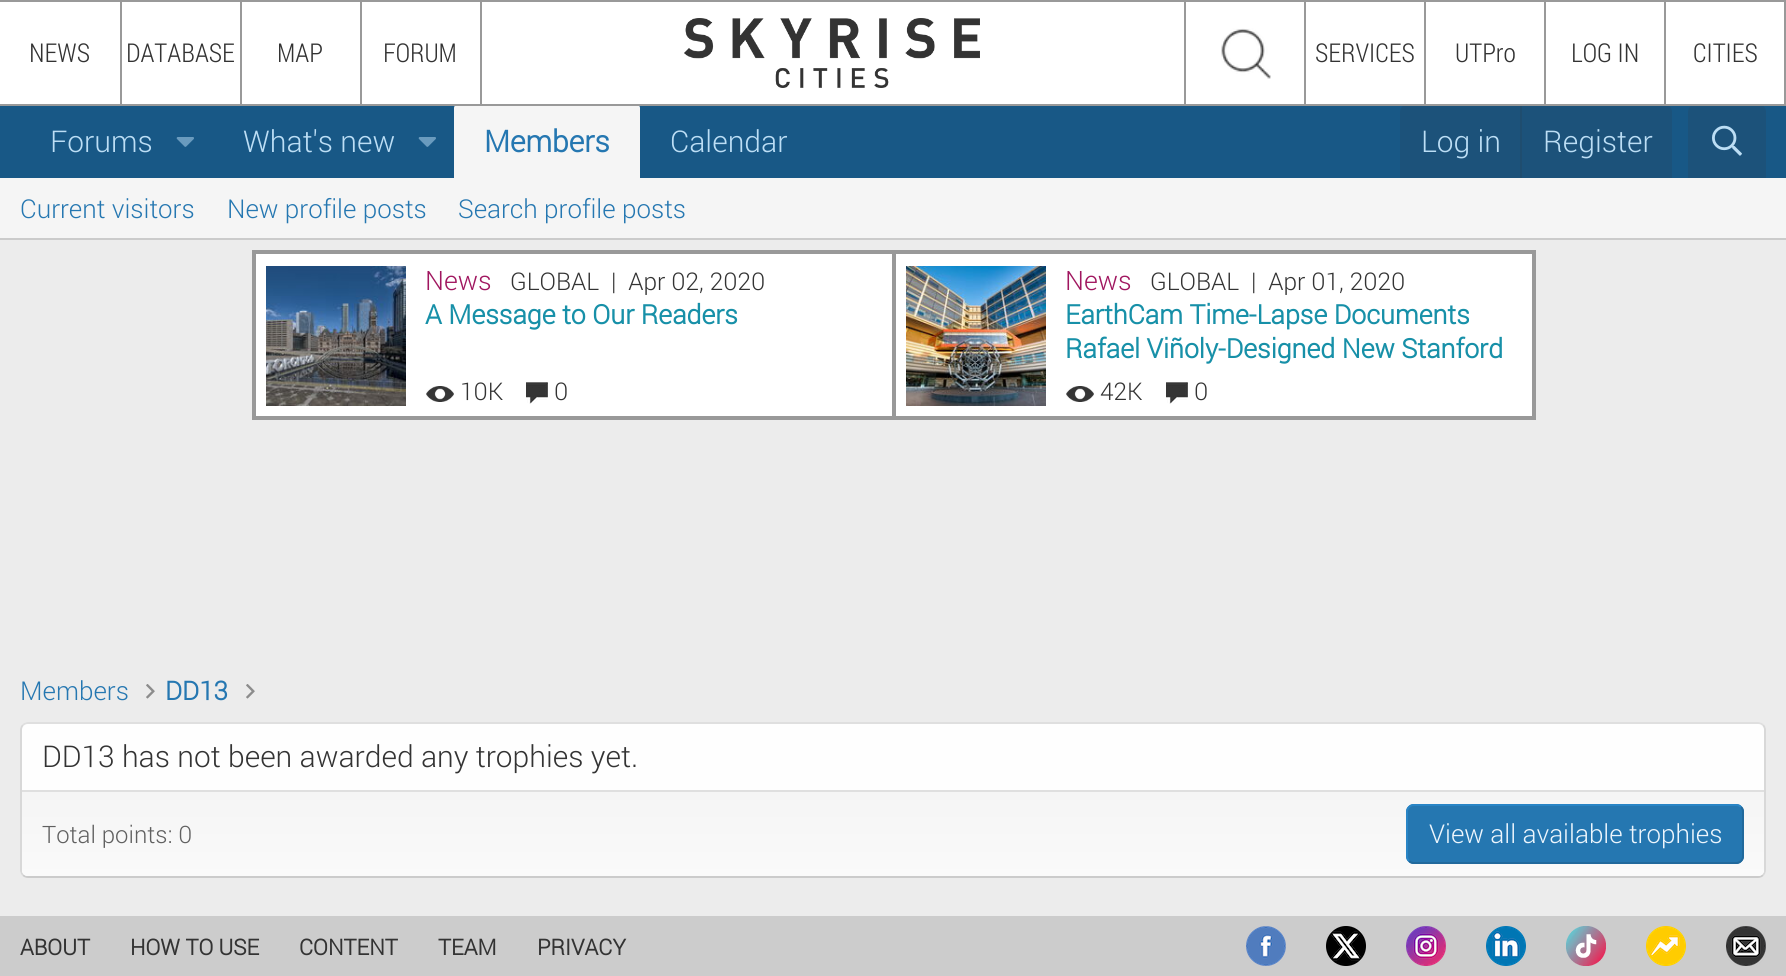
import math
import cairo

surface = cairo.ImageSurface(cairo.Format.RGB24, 1786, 976)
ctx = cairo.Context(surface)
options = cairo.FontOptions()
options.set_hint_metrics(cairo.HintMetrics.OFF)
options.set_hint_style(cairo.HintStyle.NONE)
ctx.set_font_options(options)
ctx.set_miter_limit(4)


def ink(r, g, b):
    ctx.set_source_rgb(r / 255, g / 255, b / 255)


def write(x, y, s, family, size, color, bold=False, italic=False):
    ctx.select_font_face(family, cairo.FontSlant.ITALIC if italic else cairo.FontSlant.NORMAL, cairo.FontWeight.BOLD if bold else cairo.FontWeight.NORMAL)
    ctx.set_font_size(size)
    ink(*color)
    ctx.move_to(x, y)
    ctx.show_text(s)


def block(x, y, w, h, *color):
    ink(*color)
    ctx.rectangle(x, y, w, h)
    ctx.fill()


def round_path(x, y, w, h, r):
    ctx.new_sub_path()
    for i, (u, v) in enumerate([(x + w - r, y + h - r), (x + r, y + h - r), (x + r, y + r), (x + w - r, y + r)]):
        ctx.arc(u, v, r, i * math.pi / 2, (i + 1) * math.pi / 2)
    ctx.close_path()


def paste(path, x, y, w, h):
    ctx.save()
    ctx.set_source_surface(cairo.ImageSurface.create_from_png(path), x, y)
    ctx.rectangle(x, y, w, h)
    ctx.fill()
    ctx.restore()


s1 = dict(family="Roboto Condensed Light", size=26, color=(51, 51, 51))
s2 = dict(family="Roboto Light", size=30, color=(188, 222, 245))
s3 = dict(family="Roboto", size=30, color=(37, 119, 177), bold=True)
s4 = dict(family="Roboto Light", size=26, color=(37, 119, 177))
s5 = dict(family="Roboto Light", size=26.75, color=(160, 22, 95))
s6 = dict(family="Roboto Light", size=24.4, color=(51, 51, 51))
s7 = dict(family="Roboto", size=26.75, color=(23, 144, 168), bold=True)
s8 = dict(family="Roboto", size=26, color=(37, 119, 177), bold=True)
s9 = dict(family="Roboto Light", size=30, color=(51, 51, 51))
s10 = dict(family="Roboto Light", size=24, color=(96, 96, 96))
s11 = dict(family="Roboto Light", size=26, color=(237, 246, 253))
s12 = dict(family="Roboto", size=22, color=(51, 51, 51), bold=True)

ink(236, 236, 236)
ctx.paint()
block(0, 0, 1786, 2, 153, 153, 153)
block(0, 106, 1786, 72, 24, 88, 134)
ink(245, 245, 245)
ctx.new_path()
ctx.move_to(458, 104)
ctx.line_to(636, 104)
ctx.curve_to(638, 104, 640, 106, 640, 108)
ctx.line_to(640, 178)
ctx.line_to(454, 178)
ctx.line_to(454, 108)
ctx.curve_to(454, 106, 456, 104, 458, 104)
ctx.close_path()
ctx.fill()
ink(28, 82, 122)
ctx.new_path()
ctx.move_to(1408, 104)
ctx.line_to(1664, 104)
ctx.curve_to(1668.5, 104, 1672, 107.5, 1672, 112)
ctx.line_to(1672, 178)
ctx.line_to(1400, 178)
ctx.line_to(1400, 112)
ctx.curve_to(1400, 107.5, 1403.5, 104, 1408, 104)
ctx.close_path()
ctx.fill()
block(1520, 104, 2, 74, 31, 77, 111)
ink(28, 82, 122)
ctx.new_path()
ctx.move_to(1696, 104)
ctx.line_to(1758, 104)
ctx.curve_to(1762.5, 104, 1766, 107.5, 1766, 112)
ctx.line_to(1766, 178)
ctx.line_to(1688, 178)
ctx.line_to(1688, 112)
ctx.curve_to(1688, 107.5, 1691.5, 104, 1696, 104)
ctx.close_path()
ctx.fill()
block(0, 104, 1786, 2, 153, 153, 153)
block(0, 2, 120, 102, 255, 255, 255)
write(29, 62, "NEWS", **s1)
block(122, 2, 118, 102, 255, 255, 255)
block(120, 0, 2, 106, 153, 153, 153)
write(126, 62, "DATABASE", **s1)
block(242, 2, 118, 102, 255, 255, 255)
block(240, 0, 2, 106, 153, 153, 153)
write(277, 62, "MAP", **s1)
block(362, 2, 118, 102, 255, 255, 255)
block(480, 0, 2, 106, 153, 153, 153)
block(360, 0, 2, 106, 153, 153, 153)
write(383, 62, "FORUM", **s1)
block(482, 2, 702, 102, 255, 255, 255)
paste("pic1.png", 684, 18, 296, 70)
block(1186, 2, 118, 102, 255, 255, 255)
block(1184, 0, 2, 106, 153, 153, 153)
paste("pic2.png", 1221, 28, 50, 51)
block(1306, 2, 118, 102, 255, 255, 255)
block(1304, 0, 2, 106, 153, 153, 153)
write(1315, 62, "SERVICES", **s1)
block(1426, 2, 118, 102, 255, 255, 255)
block(1424, 0, 2, 106, 153, 153, 153)
write(1455, 62, "UTPro", **s1)
block(1546, 2, 118, 102, 255, 255, 255)
block(1544, 0, 2, 106, 153, 153, 153)
write(1571, 62, "LOG IN", **s1)
block(1666, 2, 118, 102, 255, 255, 255)
block(1784, 0, 2, 106, 153, 153, 153)
block(1664, 0, 2, 106, 153, 153, 153)
write(1693, 62, "CITIES", **s1)
write(50, 152, "Forums", **s2)
paste("pic3.png", 176, 137, 18, 10)
write(243, 152, "What's new", **s2)
paste("pic3.png", 418, 137, 18, 10)
write(484, 152, "Members", **s3)
write(670, 152, "Calendar", **s2)
write(1421, 152, "Log in", **s2)
write(1543, 152, "Register", **s2)
paste("pic4.png", 1712, 125, 30, 31)
block(0, 178, 1786, 60, 245, 245, 245)
block(0, 238, 1786, 2, 203, 203, 203)
write(20, 218, "Current visitors", **s4)
write(227, 218, "New profile posts", **s4)
write(458, 218, "Search profile posts", **s4)
block(256, 254, 1276, 162, 255, 255, 255)
block(252, 250, 1284, 4, 153, 153, 153)
block(1532, 250, 4, 170, 153, 153, 153)
block(252, 416, 1284, 4, 153, 153, 153)
block(252, 254, 4, 162, 153, 153, 153)
paste("pic5.png", 266, 266, 140, 140)
write(425, 290, "News", **s5)
write(510, 290, "GLOBAL  |  Apr 02, 2020", **s6)
write(425, 324, "A Message to Our Readers", **s7)
paste("pic6.png", 426, 386, 28, 16)
write(460, 400, "10K", **s6)
paste("pic7.png", 526, 382, 22, 22)
write(554, 400, "0", **s6)
block(892, 254, 4, 162, 153, 153, 153)
paste("pic8.png", 906, 266, 140, 140)
write(1065, 290, "News", **s5)
write(1150, 290, "GLOBAL  |  Apr 01, 2020", **s6)
write(1065, 324, "EarthCam Time-Lapse Documents", **s7)
write(1065, 358, "Rafael Viñoly-Designed New Stanford", **s7)
paste("pic9.png", 1066, 386, 28, 16)
write(1100, 400, "42K", **s6)
paste("pic7.png", 1166, 382, 22, 22)
write(1194, 400, "0", **s6)
write(20, 700, "Members", **s4)
paste("pic10.png", 146, 684, 9, 15)
write(165, 700, "DD13", **s8)
paste("pic10.png", 246, 684, 9, 15)
ink(254, 254, 254)
round_path(20, 722, 1746, 156, 8)
ctx.fill()
ctx.new_path()
ctx.move_to(23, 725)
ctx.curve_to(24.5, 723.5, 26, 723, 28, 723)
ctx.line_to(1758, 723)
ctx.curve_to(1760, 723, 1761.5, 723.5, 1763, 725)
ink(223, 223, 223)
ctx.stroke()
ctx.new_path()
ctx.move_to(1763, 725)
ctx.curve_to(1764.5, 726.5, 1765, 728, 1765, 730)
ctx.line_to(1765, 870)
ctx.curve_to(1765, 872, 1764.5, 873.5, 1763, 875)
ink(216, 216, 216)
ctx.stroke()
ctx.new_path()
ctx.move_to(1763, 875)
ctx.curve_to(1761.5, 876.5, 1760, 877, 1758, 877)
ctx.line_to(28, 877)
ctx.curve_to(26, 877, 24.5, 876.5, 23, 875)
ink(203, 203, 203)
ctx.stroke()
ctx.new_path()
ctx.move_to(23, 875)
ctx.curve_to(21.5, 873.5, 21, 872, 21, 870)
ctx.line_to(21, 730)
ctx.curve_to(21, 728, 21.5, 726.5, 23, 725)
ink(216, 216, 216)
ctx.stroke()
write(42, 767, "DD13 has not been awarded any trophies yet.", **s9)
gradient = cairo.LinearGradient(893, 792, 893, 876)
gradient.add_color_stop_rgba(0, 0.961, 0.961, 0.961, 1)
gradient.add_color_stop_rgba(1, 0.98, 0.98, 0.98, 1)
ctx.set_source(gradient)
ctx.new_path()
ctx.move_to(22, 792)
ctx.line_to(1764, 792)
ctx.line_to(1764, 870)
ctx.curve_to(1764, 873.5, 1761.5, 876, 1758, 876)
ctx.line_to(28, 876)
ctx.curve_to(24.5, 876, 22, 873.5, 22, 870)
ctx.close_path()
ctx.fill()
block(22, 790, 1742, 2, 223, 223, 223)
write(42, 843, "Total points: 0", **s10)
ink(37, 119, 177)
round_path(1406, 804, 338, 60, 8)
ctx.fill()
ctx.new_path()
ctx.move_to(1741, 807)
ctx.curve_to(1742.5, 808.5, 1743, 810, 1743, 812)
ctx.line_to(1743, 856)
ctx.curve_to(1743, 858, 1742.5, 859.5, 1741, 861)
ctx.curve_to(1739.5, 862.5, 1738, 863, 1736, 863)
ctx.line_to(1414, 863)
ctx.curve_to(1412, 863, 1410.5, 862.5, 1409, 861)
ink(33, 105, 156)
ctx.stroke()
ctx.new_path()
ctx.move_to(1409, 861)
ctx.curve_to(1407.5, 859.5, 1407, 858, 1407, 856)
ctx.line_to(1407, 812)
ctx.curve_to(1407, 810, 1407.5, 808.5, 1409, 807)
ctx.curve_to(1410.5, 805.5, 1412, 805, 1414, 805)
ctx.line_to(1736, 805)
ctx.curve_to(1738, 805, 1739.5, 805.5, 1741, 807)
ink(41, 133, 198)
ctx.stroke()
write(1429, 843, "View all available trophies", **s11)
block(0, 916, 1786, 60, 204, 204, 204)
write(20, 955, "ABOUT", **s12)
write(130, 955, "HOW TO USE", **s12)
write(299, 955, "CONTENT", **s12)
write(438, 955, "TEAM", **s12)
write(537, 955, "PRIVACY", **s12)
paste("pic11.png", 1246, 926, 40, 40)
paste("pic12.png", 1326, 926, 40, 40)
paste("pic13.png", 1406, 926, 40, 40)
paste("pic14.png", 1486, 926, 40, 40)
paste("pic15.png", 1566, 926, 40, 40)
paste("pic16.png", 1646, 926, 40, 40)
paste("pic17.png", 1726, 926, 40, 40)
surface.write_to_png("screenshot.png")
